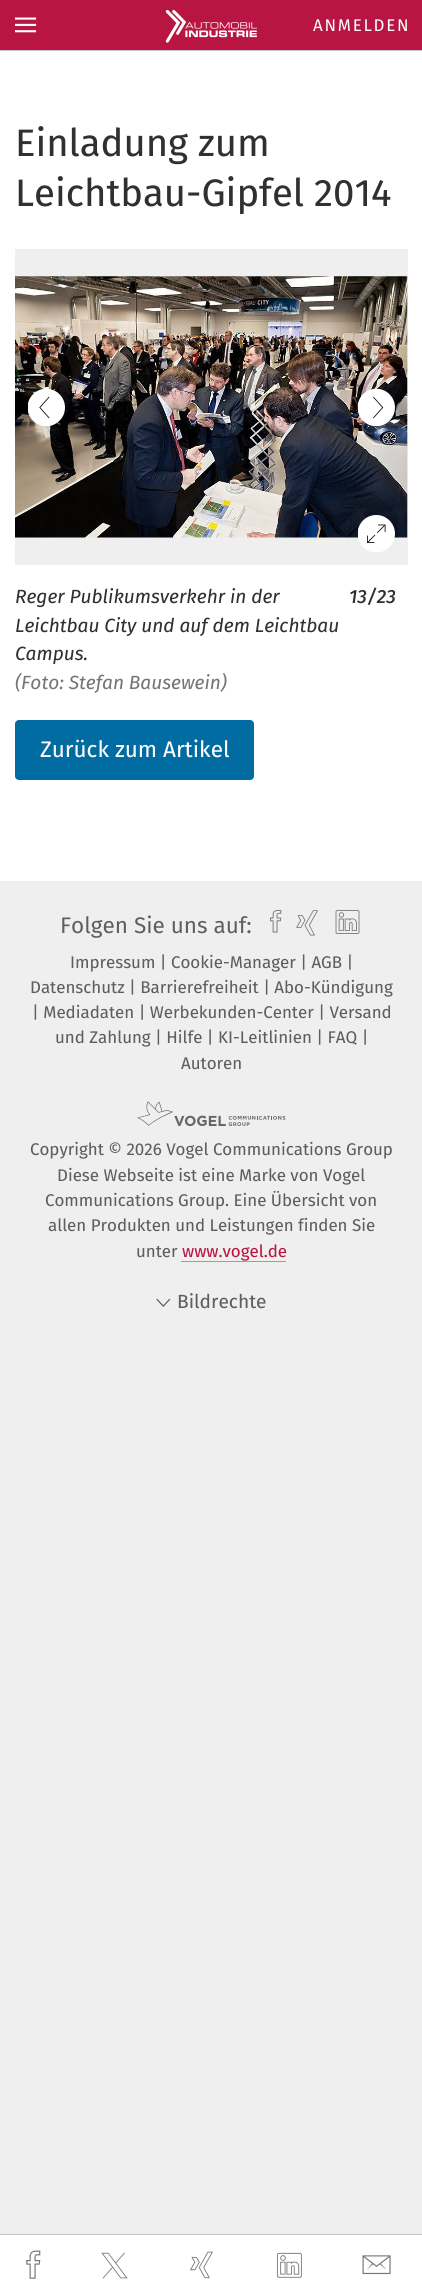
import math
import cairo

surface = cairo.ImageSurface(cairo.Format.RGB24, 422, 2296)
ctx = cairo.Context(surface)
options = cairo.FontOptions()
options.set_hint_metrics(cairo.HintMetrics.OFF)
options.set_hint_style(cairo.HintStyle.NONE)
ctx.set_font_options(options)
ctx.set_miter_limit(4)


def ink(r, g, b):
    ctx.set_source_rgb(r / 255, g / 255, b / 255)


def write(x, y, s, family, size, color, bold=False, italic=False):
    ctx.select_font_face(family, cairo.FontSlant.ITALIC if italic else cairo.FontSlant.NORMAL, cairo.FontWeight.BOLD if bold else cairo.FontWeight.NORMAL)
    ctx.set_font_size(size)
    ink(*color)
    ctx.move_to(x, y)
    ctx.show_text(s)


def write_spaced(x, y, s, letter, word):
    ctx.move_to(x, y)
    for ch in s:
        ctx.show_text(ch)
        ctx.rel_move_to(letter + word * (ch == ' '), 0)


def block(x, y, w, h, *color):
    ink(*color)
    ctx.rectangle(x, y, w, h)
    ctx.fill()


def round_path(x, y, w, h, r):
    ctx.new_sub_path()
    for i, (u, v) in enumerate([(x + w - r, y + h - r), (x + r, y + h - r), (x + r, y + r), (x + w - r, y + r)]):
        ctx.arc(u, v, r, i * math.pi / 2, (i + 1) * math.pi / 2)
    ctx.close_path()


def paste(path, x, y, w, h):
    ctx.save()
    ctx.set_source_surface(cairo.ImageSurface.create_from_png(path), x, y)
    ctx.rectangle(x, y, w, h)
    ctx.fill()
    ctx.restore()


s1 = dict(family="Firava", size=38.25, color=(48, 48, 48))
s2 = dict(family="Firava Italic", size=19.1, color=(48, 48, 48), italic=True)
s3 = dict(family="Firava Italic", size=19.1, color=(118, 118, 118), italic=True)
s4 = dict(family="Firava Italic Medium", size=19.1, color=(48, 48, 48), italic=True)
s5 = dict(family="Firava", size=22.5, color=(255, 255, 255))
s6 = dict(family="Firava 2", size=22.5, color=(94, 94, 94))
s7 = dict(family="Firava", size=16.9, color=(94, 94, 94))
s8 = dict(family="Firava", size=16.9, color=(184, 21, 67))
s9 = dict(family="Firava", size=19.1, color=(94, 94, 94))

ink(239, 239, 239)
ctx.paint()
block(0, 51, 422, 830, 255, 255, 255)
block(0, 50, 422, 1, 198, 198, 198)
block(0, 0, 422, 50, 184, 21, 67)
paste("pic1.png", 15, 17, 22, 16)
paste("pic2.png", 165, 9, 92, 34)
ctx.select_font_face("Firava 2")
ctx.set_font_size(16.9)
ink(255, 255, 255)
write_spaced(313, 31, "ANMELDEN", 1.75, 0)
write(15, 156, "Einladung zum", **s1)
write(15, 206, "Leichtbau-Gipfel 2014", **s1)
block(15, 249, 393, 316, 239, 239, 239)
paste("pic3.png", 15, 276, 393, 262)
paste("pic4.png", 28, 389, 37, 37)
paste("pic5.png", 358, 389, 37, 37)
paste("pic6.png", 358, 515, 37, 38)
write(15, 603, "Reger Publikumsverkehr in der", **s2)
write(15, 632, "Leichtbau City und auf dem Leichtbau", **s2)
write(15, 660, "Campus.", **s2)
write(15, 689, "(Foto: Stefan Bausewein)", **s3)
write(349, 603, "13/23", **s4)
ink(0, 108, 162)
round_path(15, 720, 239, 60, 4)
ctx.fill()
write(40, 757, "Zurück zum Artikel", **s5)
block(0, 2235, 422, 61, 255, 255, 255)
block(0, 2234, 422, 1, 198, 198, 198)
paste("pic7.png", 26, 2250, 15, 29)
paste("pic8.png", 101, 2252, 27, 27)
paste("pic9.png", 190, 2251, 23, 28)
paste("pic10.png", 276, 2252, 26, 26)
paste("pic11.png", 362, 2255, 29, 20)
write(60, 933, "Folgen Sie uns auf:", **s6)
paste("pic12.png", 270, 910, 12, 23)
paste("pic13.png", 296, 910, 22, 26)
paste("pic14.png", 335, 910, 25, 24)
write(70, 968, "Impressum | Cookie-Manager | AGB |", **s7)
write(30, 993, "Datenschutz | Barrierefreiheit | Abo-Kündigung", **s7)
write(32, 1018, "| Mediadaten | Werbekunden-Center | Versand", **s7)
write(55, 1043, "und Zahlung | Hilfe | KI-Leitlinien | FAQ |", **s7)
write(181, 1069, "Autoren", **s7)
paste("pic15.png", 137, 1101, 149, 26)
write(30, 1155, "Copyright © 2026 Vogel Communications Group", **s7)
write(57, 1181, "Diese Webseite ist eine Marke von Vogel", **s7)
write(45, 1206, "Communications Group. Eine Übersicht von", **s7)
write(48, 1231, "allen Produkten und Leistungen finden Sie", **s7)
write(136, 1257, "unter", **s7)
write(182, 1257, "www.vogel.de", **s8)
block(181, 1261, 105, 1, 212, 130, 153)
paste("pic16.png", 156, 1298, 15, 9)
write(177, 1308, "Bildrechte", **s9)
surface.write_to_png("screenshot.png")
